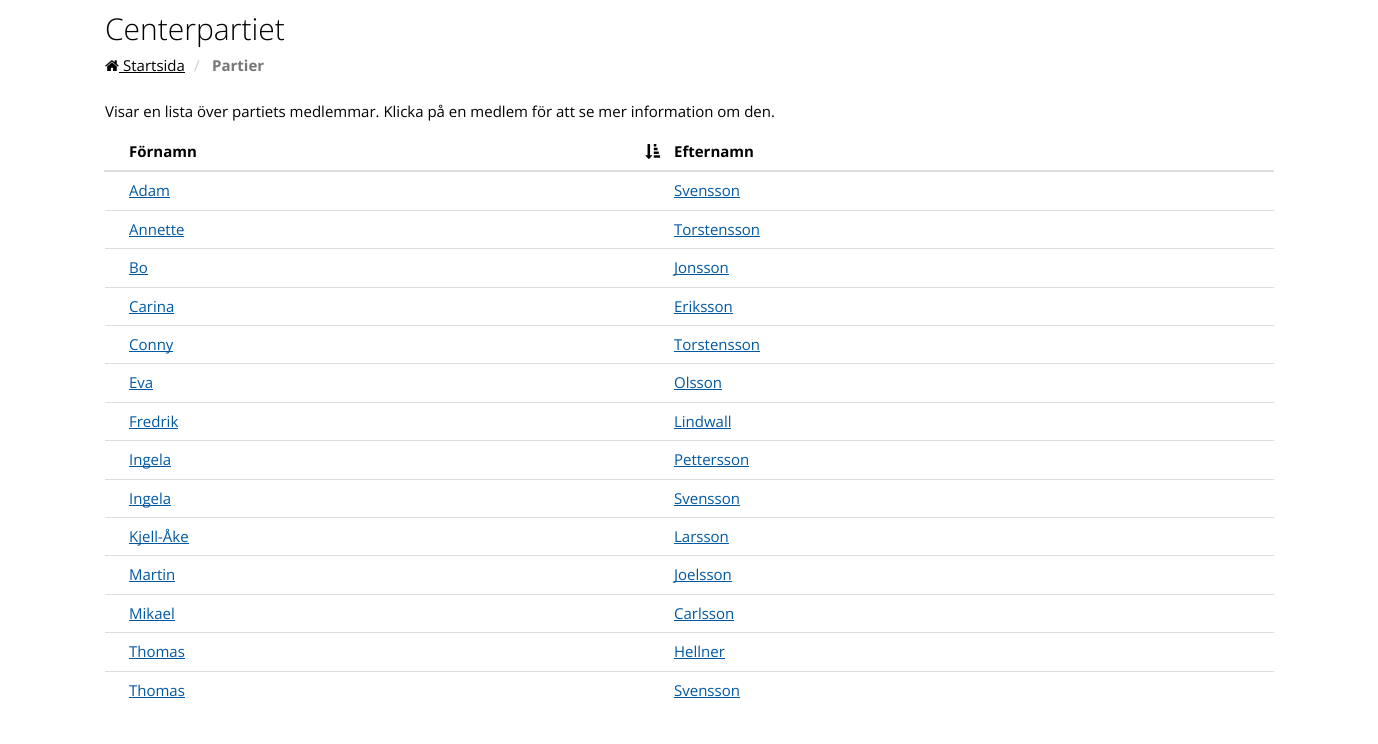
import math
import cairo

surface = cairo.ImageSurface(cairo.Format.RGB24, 1378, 744)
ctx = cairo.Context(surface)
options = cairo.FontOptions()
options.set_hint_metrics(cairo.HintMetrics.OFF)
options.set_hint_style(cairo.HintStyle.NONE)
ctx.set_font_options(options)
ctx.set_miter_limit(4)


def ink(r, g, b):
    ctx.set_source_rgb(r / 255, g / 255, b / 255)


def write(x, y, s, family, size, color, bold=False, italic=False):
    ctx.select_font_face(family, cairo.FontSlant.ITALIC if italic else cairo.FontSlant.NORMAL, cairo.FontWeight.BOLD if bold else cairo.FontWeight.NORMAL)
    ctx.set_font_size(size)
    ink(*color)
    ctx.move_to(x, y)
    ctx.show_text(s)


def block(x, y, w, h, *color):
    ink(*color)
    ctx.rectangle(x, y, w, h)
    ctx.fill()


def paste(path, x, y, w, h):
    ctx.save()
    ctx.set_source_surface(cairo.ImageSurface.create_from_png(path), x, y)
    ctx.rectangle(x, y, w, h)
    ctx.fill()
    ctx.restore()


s1 = dict(family="Open Sans Light", size=30, color=(0, 0, 0))
s2 = dict(family="Open Sans", size=15, color=(0, 0, 0))
s3 = dict(family="Open Sans", size=15, color=(204, 204, 204))
s4 = dict(family="Open Sans", size=15, color=(119, 119, 119), bold=True)
s5 = dict(family="Open Sans", size=15, color=(0, 0, 0), bold=True)
s6 = dict(family="Open Sans", size=15, color=(0, 87, 162))

ink(255, 255, 255)
ctx.paint()
write(105, 40, "Centerpartiet", **s1)
paste("pic1.png", 105, 60, 14, 11)
write(123, 71, "Startsida", **s2)
block(119, 72, 66, 1, 0, 0, 0)
write(194, 71, "/", **s3)
write(212, 71, "Partier", **s4)
write(105, 117, "Visar en lista över partiets medlemmar. Klicka på en medlem för att se mer information om den.", **s2)
write(129, 157, "Förnamn", **s5)
paste("pic2.png", 645, 144, 16, 15)
block(104, 170, 1170, 2, 221, 221, 221)
write(674, 157, "Efternamn", **s5)
write(129, 196, "Adam", **s6)
block(129, 197, 41, 1, 0, 87, 162)
write(674, 196, "Svensson", **s6)
block(674, 197, 66, 1, 0, 87, 162)
write(129, 235, "Annette", **s6)
block(129, 236, 55, 1, 0, 87, 162)
block(105, 210, 1169, 1, 221, 221, 221)
write(674, 235, "Torstensson", **s6)
block(674, 236, 86, 1, 0, 87, 162)
write(129, 273, "Bo", **s6)
block(129, 274, 19, 1, 0, 87, 162)
block(105, 248, 1169, 1, 221, 221, 221)
block(674, 274, 55, 1, 0, 87, 162)
write(674, 273, "Jonsson", **s6)
write(129, 312, "Carina", **s6)
block(129, 313, 45, 1, 0, 87, 162)
block(105, 287, 1169, 1, 221, 221, 221)
write(674, 312, "Eriksson", **s6)
block(674, 313, 59, 1, 0, 87, 162)
block(129, 351, 44, 1, 0, 87, 162)
write(129, 350, "Conny", **s6)
block(105, 325, 1169, 1, 221, 221, 221)
write(674, 350, "Torstensson", **s6)
block(674, 351, 86, 1, 0, 87, 162)
write(129, 388, "Eva", **s6)
block(129, 389, 24, 1, 0, 87, 162)
block(105, 363, 1169, 1, 221, 221, 221)
write(674, 388, "Olsson", **s6)
block(674, 389, 48, 1, 0, 87, 162)
write(129, 427, "Fredrik", **s6)
block(129, 428, 49, 1, 0, 87, 162)
block(105, 402, 1169, 1, 221, 221, 221)
write(674, 427, "Lindwall", **s6)
block(674, 428, 57, 1, 0, 87, 162)
block(129, 466, 42, 1, 0, 87, 162)
write(129, 465, "Ingela", **s6)
block(105, 440, 1169, 1, 221, 221, 221)
write(674, 465, "Pettersson", **s6)
block(674, 466, 75, 1, 0, 87, 162)
block(129, 505, 42, 1, 0, 87, 162)
write(129, 504, "Ingela", **s6)
block(105, 479, 1169, 1, 221, 221, 221)
write(674, 504, "Svensson", **s6)
block(674, 505, 66, 1, 0, 87, 162)
block(129, 543, 60, 1, 0, 87, 162)
write(129, 542, "Kjell-Åke", **s6)
block(105, 517, 1169, 1, 221, 221, 221)
write(674, 542, "Larsson", **s6)
block(674, 543, 55, 1, 0, 87, 162)
write(129, 580, "Martin", **s6)
block(129, 581, 46, 1, 0, 87, 162)
block(105, 555, 1169, 1, 221, 221, 221)
block(674, 581, 58, 1, 0, 87, 162)
write(674, 580, "Joelsson", **s6)
write(129, 619, "Mikael", **s6)
block(129, 620, 46, 1, 0, 87, 162)
block(105, 594, 1169, 1, 221, 221, 221)
write(674, 619, "Carlsson", **s6)
block(674, 620, 60, 1, 0, 87, 162)
write(129, 657, "Thomas", **s6)
block(129, 658, 56, 1, 0, 87, 162)
block(105, 632, 1169, 1, 221, 221, 221)
write(674, 657, "Hellner", **s6)
block(674, 658, 51, 1, 0, 87, 162)
write(129, 696, "Thomas", **s6)
block(129, 697, 56, 1, 0, 87, 162)
block(105, 671, 1169, 1, 221, 221, 221)
write(674, 696, "Svensson", **s6)
block(674, 697, 66, 1, 0, 87, 162)
surface.write_to_png("screenshot.png")
